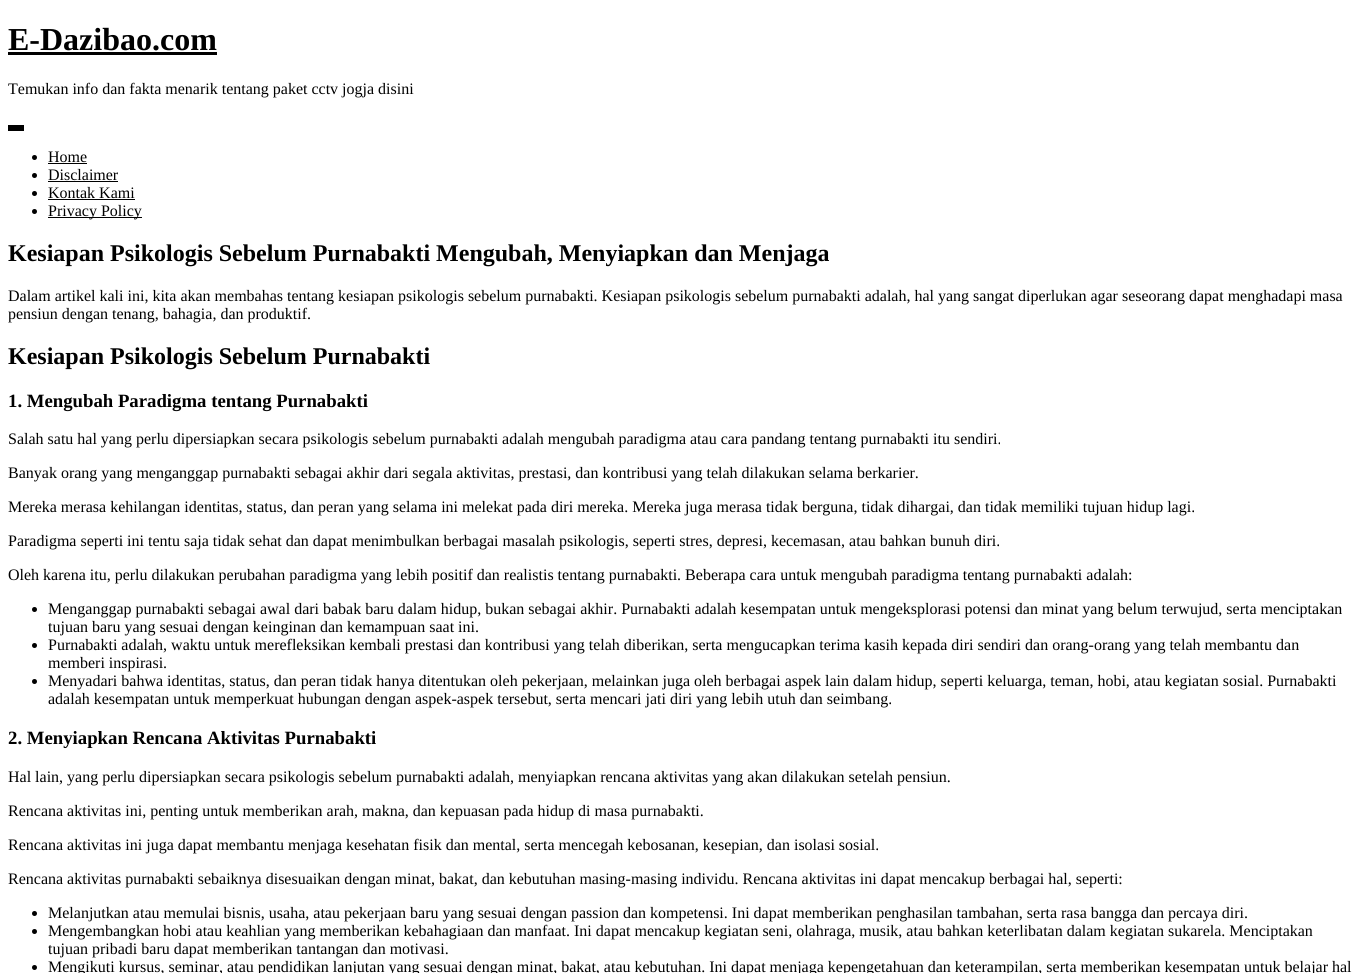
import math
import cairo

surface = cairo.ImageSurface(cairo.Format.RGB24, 1361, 973)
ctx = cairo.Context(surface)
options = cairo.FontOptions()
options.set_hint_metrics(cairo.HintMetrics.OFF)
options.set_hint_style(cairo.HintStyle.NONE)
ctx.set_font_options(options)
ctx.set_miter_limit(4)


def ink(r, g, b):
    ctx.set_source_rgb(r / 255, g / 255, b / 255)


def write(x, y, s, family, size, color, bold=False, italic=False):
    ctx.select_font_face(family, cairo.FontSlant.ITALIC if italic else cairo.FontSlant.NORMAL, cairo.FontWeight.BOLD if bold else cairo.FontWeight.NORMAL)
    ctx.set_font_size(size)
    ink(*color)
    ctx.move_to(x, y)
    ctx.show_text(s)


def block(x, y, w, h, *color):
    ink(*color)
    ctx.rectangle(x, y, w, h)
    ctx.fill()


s1 = dict(family="Liberation Serif", size=32, color=(0, 0, 0), bold=True)
s2 = dict(family="Liberation Serif", size=16, color=(0, 0, 0))
s3 = dict(family="Liberation Serif", size=24, color=(0, 0, 0), bold=True)
s4 = dict(family="Liberation Serif", size=18.75, color=(0, 0, 0), bold=True)

ink(255, 255, 255)
ctx.paint()
write(8, 50, "E-Dazibao.com", **s1)
block(8, 52, 209, 3, 0, 0, 0)
write(8, 94, "Temukan info dan fakta menarik tentang paket cctv jogja disini", **s2)
block(8, 125, 16, 6, 0, 0, 0)
ctx.new_path()
ctx.arc(34.5, 157.5, 2.5, 0, 2 * math.pi)
ctx.fill()
write(48, 162, "Home", **s2)
block(48, 163, 39, 1, 0, 0, 0)
ctx.new_path()
ctx.arc(34.5, 175.5, 2.5, 0, 2 * math.pi)
ctx.fill()
write(48, 180, "Disclaimer", **s2)
block(48, 181, 70, 1, 0, 0, 0)
ctx.new_path()
ctx.arc(34.5, 193.5, 2.5, 0, 2 * math.pi)
ctx.fill()
write(48, 198, "Kontak Kami", **s2)
block(48, 199, 87, 1, 0, 0, 0)
ctx.new_path()
ctx.arc(34.5, 211.5, 2.5, 0, 2 * math.pi)
ctx.fill()
block(48, 217, 94, 1, 0, 0, 0)
write(48, 216, "Privacy Policy", **s2)
write(8, 261, "Kesiapan Psikologis Sebelum Purnabakti Mengubah, Menyiapkan dan Menjaga", **s3)
write(8, 301, "Dalam artikel kali ini, kita akan membahas tentang kesiapan psikologis sebelum purnabakti. Kesiapan psikologis sebelum purnabakti adalah, hal yang sangat diperlukan agar seseorang dapat menghadapi masa", **s2)
write(8, 319, "pensiun dengan tenang, bahagia, dan produktif.", **s2)
write(8, 364, "Kesiapan Psikologis Sebelum Purnabakti", **s3)
write(8, 407, "1. Mengubah Paradigma tentang Purnabakti", **s4)
write(8, 444, "Salah satu hal yang perlu dipersiapkan secara psikologis sebelum purnabakti adalah mengubah paradigma atau cara pandang tentang purnabakti itu sendiri.", **s2)
write(8, 478, "Banyak orang yang menganggap purnabakti sebagai akhir dari segala aktivitas, prestasi, dan kontribusi yang telah dilakukan selama berkarier.", **s2)
write(8, 512, "Mereka merasa kehilangan identitas, status, dan peran yang selama ini melekat pada diri mereka. Mereka juga merasa tidak berguna, tidak dihargai, dan tidak memiliki tujuan hidup lagi.", **s2)
write(8, 546, "Paradigma seperti ini tentu saja tidak sehat dan dapat menimbulkan berbagai masalah psikologis, seperti stres, depresi, kecemasan, atau bahkan bunuh diri.", **s2)
write(8, 580, "Oleh karena itu, perlu dilakukan perubahan paradigma yang lebih positif dan realistis tentang purnabakti. Beberapa cara untuk mengubah paradigma tentang purnabakti adalah:", **s2)
ctx.new_path()
ctx.arc(34.5, 609.5, 2.5, 0, 2 * math.pi)
ctx.fill()
write(48, 614, "Menganggap purnabakti sebagai awal dari babak baru dalam hidup, bukan sebagai akhir. Purnabakti adalah kesempatan untuk mengeksplorasi potensi dan minat yang belum terwujud, serta menciptakan", **s2)
write(48, 632, "tujuan baru yang sesuai dengan keinginan dan kemampuan saat ini.", **s2)
ctx.new_path()
ctx.arc(34.5, 645.5, 2.5, 0, 2 * math.pi)
ctx.fill()
write(48, 650, "Purnabakti adalah, waktu untuk merefleksikan kembali prestasi dan kontribusi yang telah diberikan, serta mengucapkan terima kasih kepada diri sendiri dan orang-orang yang telah membantu dan", **s2)
write(48, 668, "memberi inspirasi.", **s2)
ctx.new_path()
ctx.arc(34.5, 681.5, 2.5, 0, 2 * math.pi)
ctx.fill()
write(48, 686, "Menyadari bahwa identitas, status, dan peran tidak hanya ditentukan oleh pekerjaan, melainkan juga oleh berbagai aspek lain dalam hidup, seperti keluarga, teman, hobi, atau kegiatan sosial. Purnabakti", **s2)
write(48, 704, "adalah kesempatan untuk memperkuat hubungan dengan aspek-aspek tersebut, serta mencari jati diri yang lebih utuh dan seimbang.", **s2)
write(8, 744, "2. Menyiapkan Rencana Aktivitas Purnabakti", **s4)
write(8, 782, "Hal lain, yang perlu dipersiapkan secara psikologis sebelum purnabakti adalah, menyiapkan rencana aktivitas yang akan dilakukan setelah pensiun.", **s2)
write(8, 816, "Rencana aktivitas ini, penting untuk memberikan arah, makna, dan kepuasan pada hidup di masa purnabakti.", **s2)
write(8, 850, "Rencana aktivitas ini juga dapat membantu menjaga kesehatan fisik dan mental, serta mencegah kebosanan, kesepian, dan isolasi sosial.", **s2)
write(8, 884, "Rencana aktivitas purnabakti sebaiknya disesuaikan dengan minat, bakat, dan kebutuhan masing-masing individu. Rencana aktivitas ini dapat mencakup berbagai hal, seperti:", **s2)
ctx.new_path()
ctx.arc(34.5, 913.5, 2.5, 0, 2 * math.pi)
ctx.fill()
write(48, 918, "Melanjutkan atau memulai bisnis, usaha, atau pekerjaan baru yang sesuai dengan passion dan kompetensi. Ini dapat memberikan penghasilan tambahan, serta rasa bangga dan percaya diri.", **s2)
ctx.new_path()
ctx.arc(34.5, 931.5, 2.5, 0, 2 * math.pi)
ctx.fill()
write(48, 936, "Mengembangkan hobi atau keahlian yang memberikan kebahagiaan dan manfaat. Ini dapat mencakup kegiatan seni, olahraga, musik, atau bahkan keterlibatan dalam kegiatan sukarela. Menciptakan", **s2)
write(48, 954, "tujuan pribadi baru dapat memberikan tantangan dan motivasi.", **s2)
ctx.new_path()
ctx.arc(34.5, 967.5, 2.5, 0, 2 * math.pi)
ctx.fill()
write(48, 972, "Mengikuti kursus, seminar, atau pendidikan lanjutan yang sesuai dengan minat, bakat, atau kebutuhan. Ini dapat menjaga kepengetahuan dan keterampilan, serta memberikan kesempatan untuk belajar hal", **s2)
surface.write_to_png("screenshot.png")
